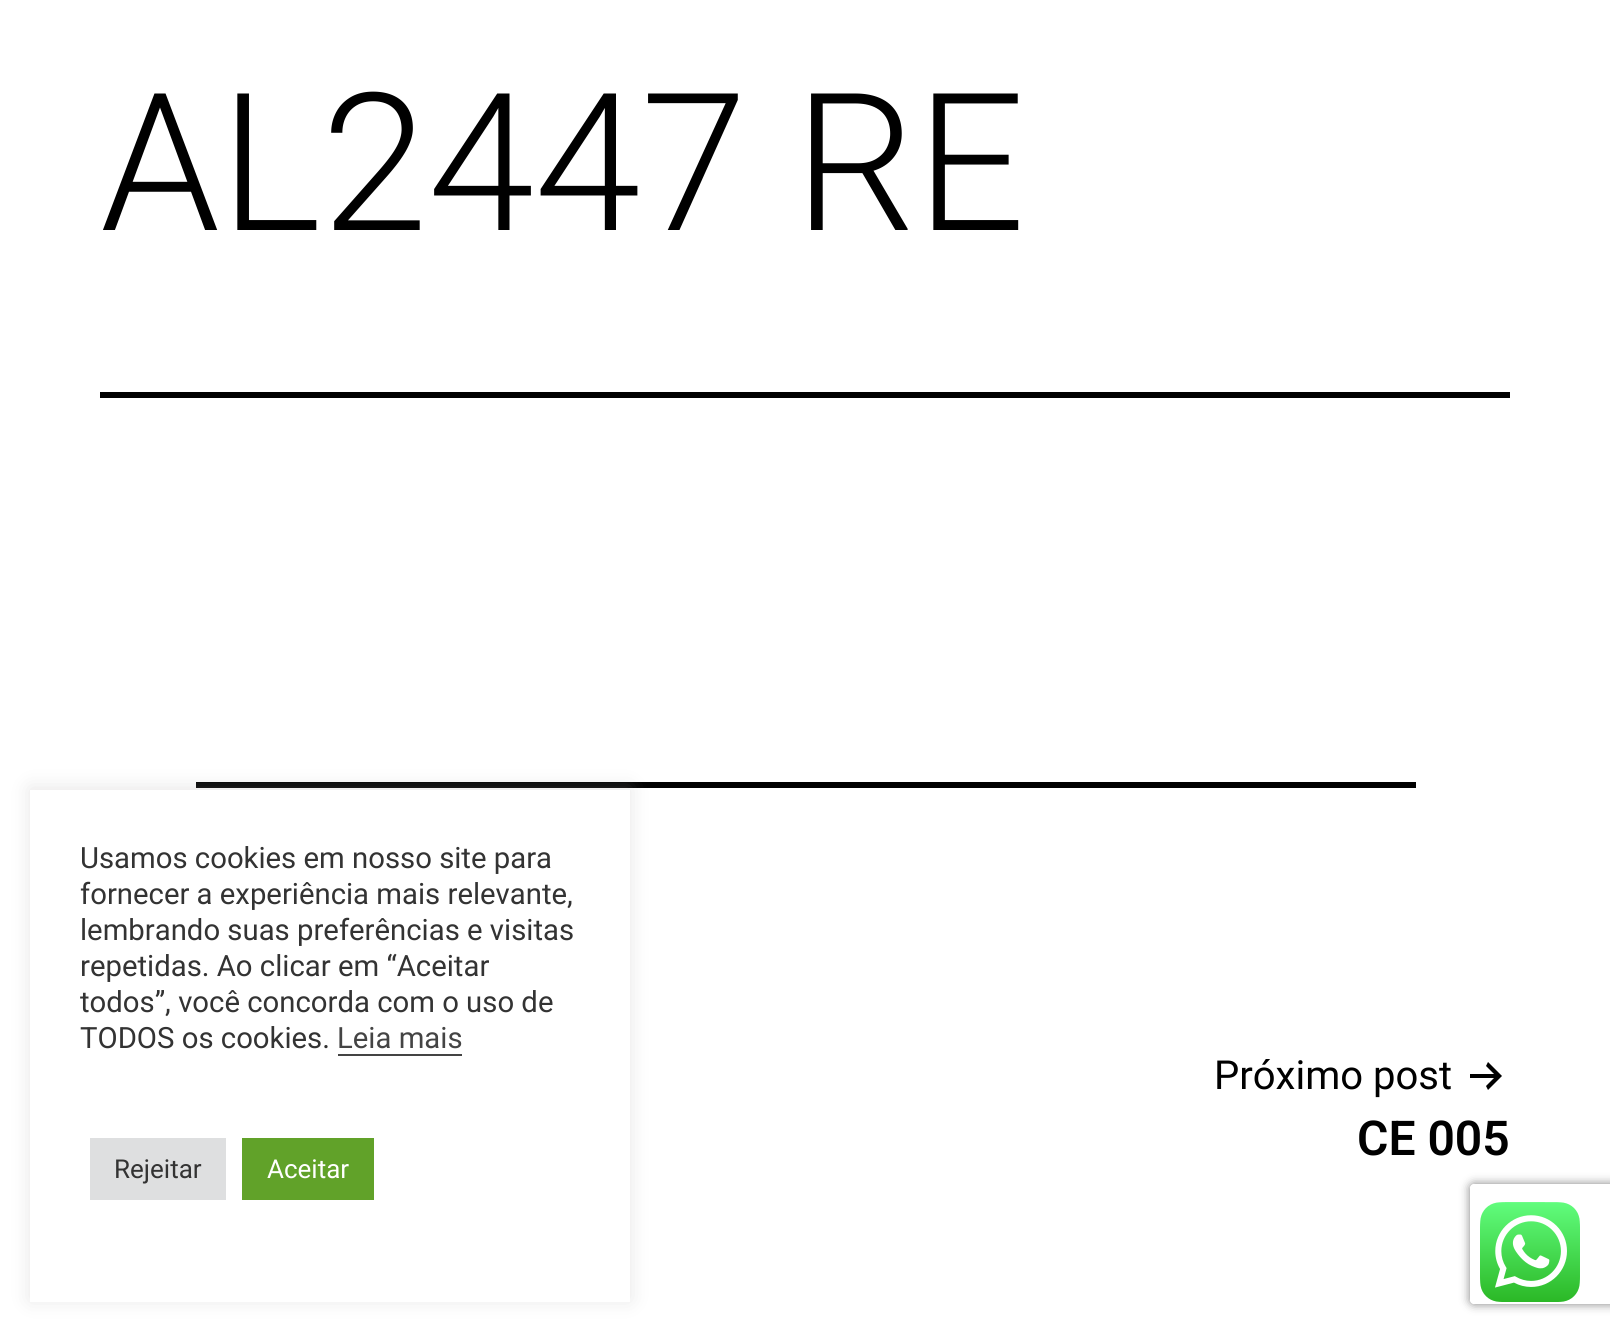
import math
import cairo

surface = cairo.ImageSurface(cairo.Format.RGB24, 1610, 1331)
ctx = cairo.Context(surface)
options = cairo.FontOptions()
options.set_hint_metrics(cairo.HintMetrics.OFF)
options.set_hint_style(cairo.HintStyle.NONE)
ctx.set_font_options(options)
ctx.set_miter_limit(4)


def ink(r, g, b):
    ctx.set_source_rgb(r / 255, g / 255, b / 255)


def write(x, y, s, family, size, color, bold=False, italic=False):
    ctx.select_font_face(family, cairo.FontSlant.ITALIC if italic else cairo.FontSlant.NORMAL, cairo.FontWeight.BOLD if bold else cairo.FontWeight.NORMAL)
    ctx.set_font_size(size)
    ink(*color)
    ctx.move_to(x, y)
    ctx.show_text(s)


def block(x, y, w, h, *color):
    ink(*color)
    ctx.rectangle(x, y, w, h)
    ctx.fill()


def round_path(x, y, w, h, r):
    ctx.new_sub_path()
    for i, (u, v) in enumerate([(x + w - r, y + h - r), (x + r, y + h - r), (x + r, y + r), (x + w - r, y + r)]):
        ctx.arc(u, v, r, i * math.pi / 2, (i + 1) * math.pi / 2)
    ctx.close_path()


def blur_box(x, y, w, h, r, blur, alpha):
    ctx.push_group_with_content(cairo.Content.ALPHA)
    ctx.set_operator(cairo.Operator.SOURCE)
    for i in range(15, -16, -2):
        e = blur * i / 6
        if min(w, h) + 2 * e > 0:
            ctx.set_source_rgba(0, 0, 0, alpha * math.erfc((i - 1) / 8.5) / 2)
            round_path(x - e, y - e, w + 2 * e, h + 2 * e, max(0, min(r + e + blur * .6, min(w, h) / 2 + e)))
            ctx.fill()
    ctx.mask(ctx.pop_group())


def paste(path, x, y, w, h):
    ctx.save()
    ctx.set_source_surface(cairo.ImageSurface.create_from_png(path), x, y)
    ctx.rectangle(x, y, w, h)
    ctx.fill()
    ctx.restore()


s1 = dict(family="Roboto Light", size=192, color=(0, 0, 0))
s2 = dict(family="Roboto", size=40, color=(0, 0, 0))
s3 = dict(family="Roboto SemiBold", size=48, color=(0, 0, 0))
s4 = dict(family="Roboto", size=29.3, color=(51, 51, 51))
s5 = dict(family="Roboto", size=29.3, color=(68, 68, 68))
s6 = dict(family="Roboto", size=26, color=(51, 51, 51))
s7 = dict(family="Roboto", size=26, color=(255, 255, 255))

ink(255, 255, 255)
ctx.paint()
block(100, 392, 1410, 6, 0, 0, 0)
write(100, 230, "AL2447 RE", **s1)
block(196, 782, 1220, 6, 0, 0, 0)
write(1214, 1089, "Próximo post", **s2)
ctx.set_fill_rule(cairo.FillRule.EVEN_ODD)
ctx.new_path()
ctx.move_to(1470, 1078)
ctx.line_to(1470, 1074)
ctx.line_to(1494, 1074)
ctx.line_to(1486, 1066)
ctx.line_to(1488, 1062)
ctx.line_to(1502, 1076)
ctx.line_to(1488, 1090)
ctx.line_to(1486, 1086)
ctx.line_to(1494, 1078)
ctx.close_path()
ctx.fill()
write(1357, 1155, "CE 005", **s3)
ink(172, 171, 171)
blur_box(30, 788, 600, 512, 0, 10, 0.3)
block(30, 790, 600, 512, 255, 255, 255)
write(80, 868, "Usamos cookies em nosso site para", **s4)
write(80, 904, "fornecer a experiência mais relevante,", **s4)
write(80, 940, "lembrando suas preferências e visitas", **s4)
write(80, 976, "repetidas. Ao clicar em “Aceitar", **s4)
write(80, 1012, "todos”, você concorda com o uso de", **s4)
write(80, 1048, "TODOS os cookies.", **s4)
write(337, 1048, "Leia mais", **s5)
block(338, 1054, 124, 2, 68, 68, 68)
block(90, 1138, 136, 62, 222, 223, 224)
write(114, 1178, "Rejeitar", **s6)
block(242, 1138, 132, 62, 97, 162, 41)
write(267, 1178, "Aceitar", **s7)
ctx.save()
ctx.new_path()
ctx.move_to(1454, 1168)
ctx.line_to(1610, 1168)
ctx.line_to(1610, 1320)
ctx.line_to(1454, 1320)
ctx.close_path()
ctx.move_to(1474, 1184)
ctx.line_to(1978, 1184)
ctx.curve_to(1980, 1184, 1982, 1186, 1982, 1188)
ctx.line_to(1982, 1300)
ctx.curve_to(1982, 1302, 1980, 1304, 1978, 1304)
ctx.line_to(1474, 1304)
ctx.curve_to(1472, 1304, 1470, 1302, 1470, 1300)
ctx.line_to(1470, 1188)
ctx.curve_to(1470, 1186, 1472, 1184, 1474, 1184)
ctx.close_path()
ctx.clip()
ink(128, 128, 128)
blur_box(1470, 1184, 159, 120, 4, 5, 1)
ctx.restore()
paste("pic1.png", 1480, 1202, 100, 100)
surface.write_to_png("screenshot.png")
